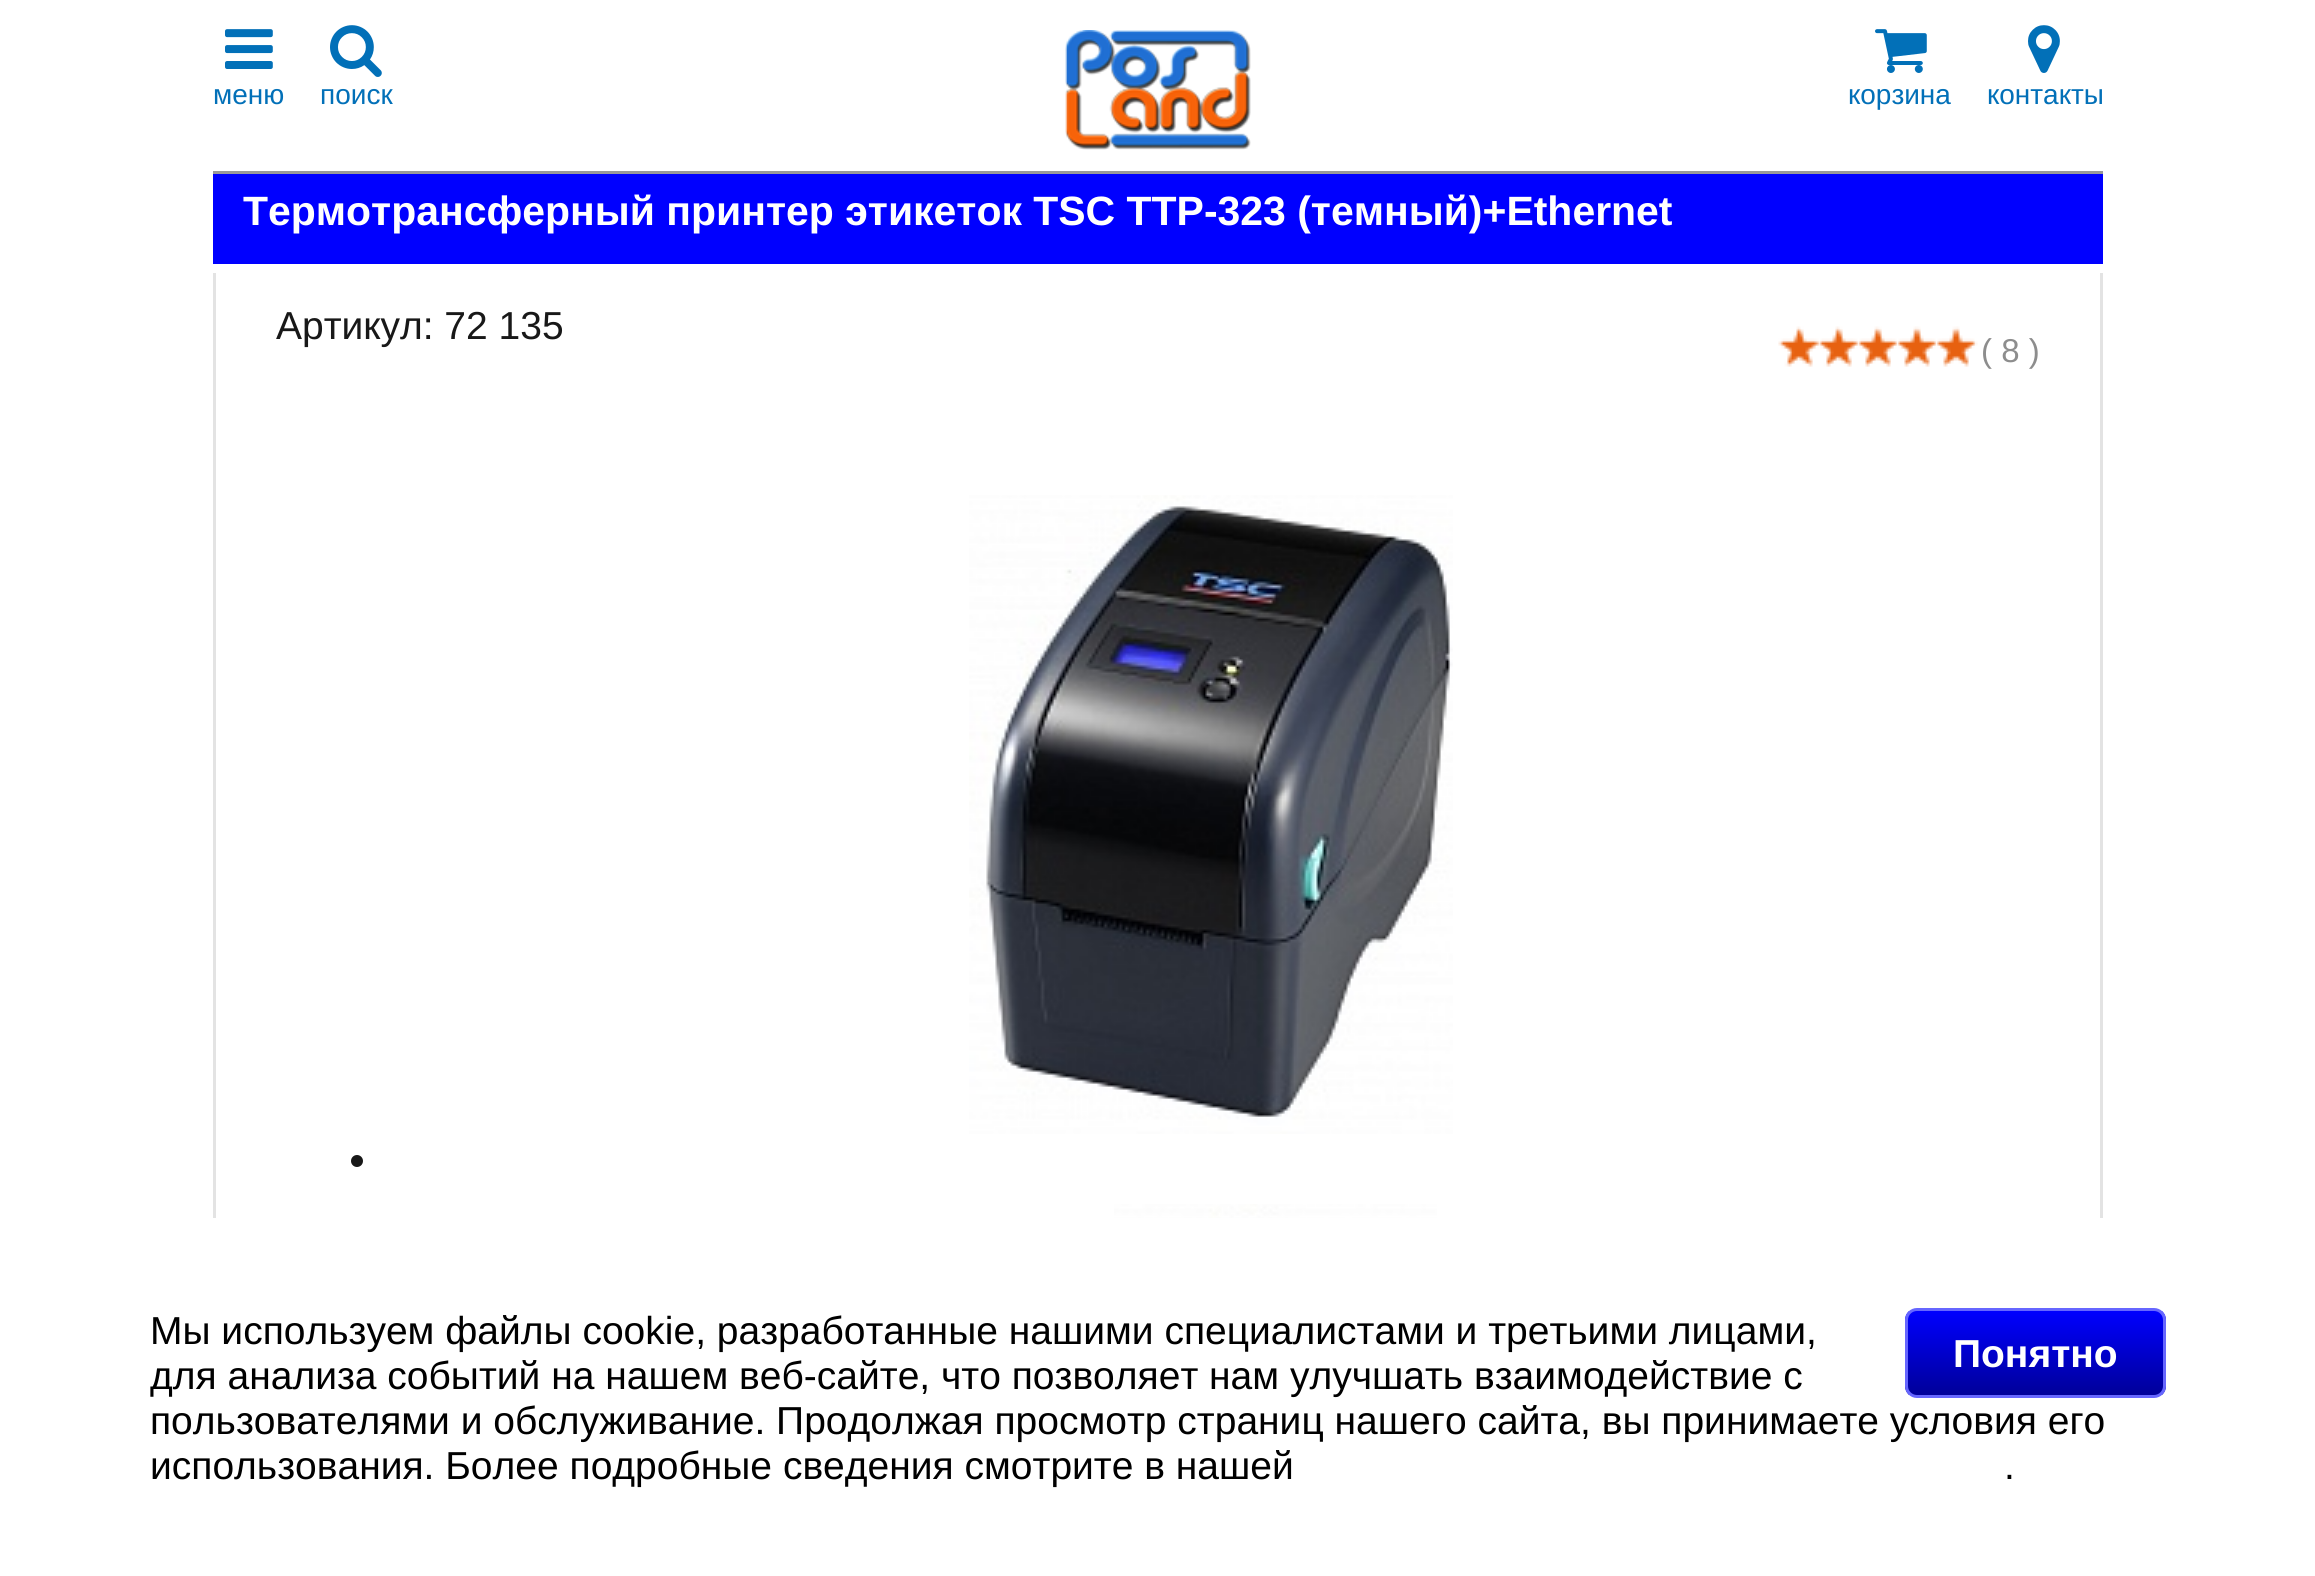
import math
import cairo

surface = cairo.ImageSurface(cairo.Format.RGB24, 2315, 1576)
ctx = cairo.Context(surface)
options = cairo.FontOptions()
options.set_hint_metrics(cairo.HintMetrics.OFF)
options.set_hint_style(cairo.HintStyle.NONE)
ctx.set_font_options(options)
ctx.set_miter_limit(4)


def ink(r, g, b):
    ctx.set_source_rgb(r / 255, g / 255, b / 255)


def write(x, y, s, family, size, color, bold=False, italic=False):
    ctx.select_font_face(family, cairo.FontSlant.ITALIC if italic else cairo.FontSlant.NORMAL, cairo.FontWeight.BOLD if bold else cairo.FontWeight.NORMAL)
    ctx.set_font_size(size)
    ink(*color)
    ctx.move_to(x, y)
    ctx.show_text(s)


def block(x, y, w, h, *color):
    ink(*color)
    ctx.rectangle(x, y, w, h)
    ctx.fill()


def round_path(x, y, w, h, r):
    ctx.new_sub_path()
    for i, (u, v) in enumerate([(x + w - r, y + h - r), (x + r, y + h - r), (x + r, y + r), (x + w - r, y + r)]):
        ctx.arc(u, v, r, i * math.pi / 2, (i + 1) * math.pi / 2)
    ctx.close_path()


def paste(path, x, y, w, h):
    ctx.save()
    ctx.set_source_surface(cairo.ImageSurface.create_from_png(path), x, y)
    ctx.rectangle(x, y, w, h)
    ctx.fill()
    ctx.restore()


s1 = dict(family="Liberation Sans", size=28, color=(2, 112, 184))
s2 = dict(family="Liberation Sans", size=40.95, color=(255, 255, 255), bold=True)
s3 = dict(family="Liberation Sans", size=39, color=(24, 24, 24))
s4 = dict(family="Liberation Sans", size=33, color=(141, 141, 141))
s5 = dict(family="Liberation Sans", size=39, color=(0, 0, 0))
s6 = dict(family="Liberation Sans", size=39, color=(255, 255, 255), bold=True)

ink(255, 255, 255)
ctx.paint()
block(213, 171, 1890, 3, 153, 153, 153)
paste("pic1.png", 225, 29, 48, 40)
write(213, 104, "меню", **s1)
paste("pic2.png", 330, 25, 52, 52)
write(320, 104, "поиск", **s1)
paste("pic3.png", 1065, 30, 186, 120)
paste("pic4.png", 1875, 29, 52, 44)
write(1848, 104, "корзина", **s1)
paste("pic5.png", 2028, 25, 32, 48)
write(1987, 104, "контакты", **s1)
block(213, 174, 1890, 90, 0, 0, 255)
write(243, 225, "Термотрансферный принтер этикеток TSC TTP-323 (темный)+Ethernet", **s2)
block(2100, 273, 3, 945, 227, 227, 227)
block(213, 273, 3, 945, 227, 227, 227)
write(276, 339, "Артикул: 72 135", **s3)
block(1778, 326, 200, 41, 231, 97, 16)
paste("pic6.png", 1776, 303, 204, 90)
write(1981, 362, "( 8 )", **s4)
paste("pic7.png", 969, 495, 484, 639)
ink(24, 24, 24)
ctx.arc(357, 1161, 6, 0, 2 * math.pi)
ctx.fill()
paste("pic8.png", 1114, 1204, 323, 14)
write(150, 1344, "Мы используем файлы cookie, разработанные нашими специалистами и третьими лицами,", **s5)
ctx.save()
round_path(1905, 1308, 261, 90, 12)
ctx.clip()
gradient = cairo.LinearGradient(2036, 1311, 2036, 1395)
gradient.add_color_stop_rgba(0, 0, 0, 1, 1)
gradient.add_color_stop_rgba(1, 0, 0, 0.6, 1)
ctx.set_source(gradient)
ctx.rectangle(1905, 1311, 261, 84)
ctx.fill()
ctx.restore()
round_path(1906.5, 1309.5, 258, 87, 10.5)
ink(102, 102, 255)
ctx.set_line_width(3)
ctx.stroke()
write(1953, 1367, "Понятно", **s6)
write(150, 1389, "для анализа событий на нашем веб-сайте, что позволяет нам улучшать взаимодействие с", **s5)
write(150, 1434, "пользователями и обслуживание. Продолжая просмотр страниц нашего сайта, вы принимаете условия его", **s5)
write(150, 1479, "использования. Более подробные сведения смотрите в нашей", **s5)
write(2004, 1479, ".", **s5)
surface.write_to_png("screenshot.png")
